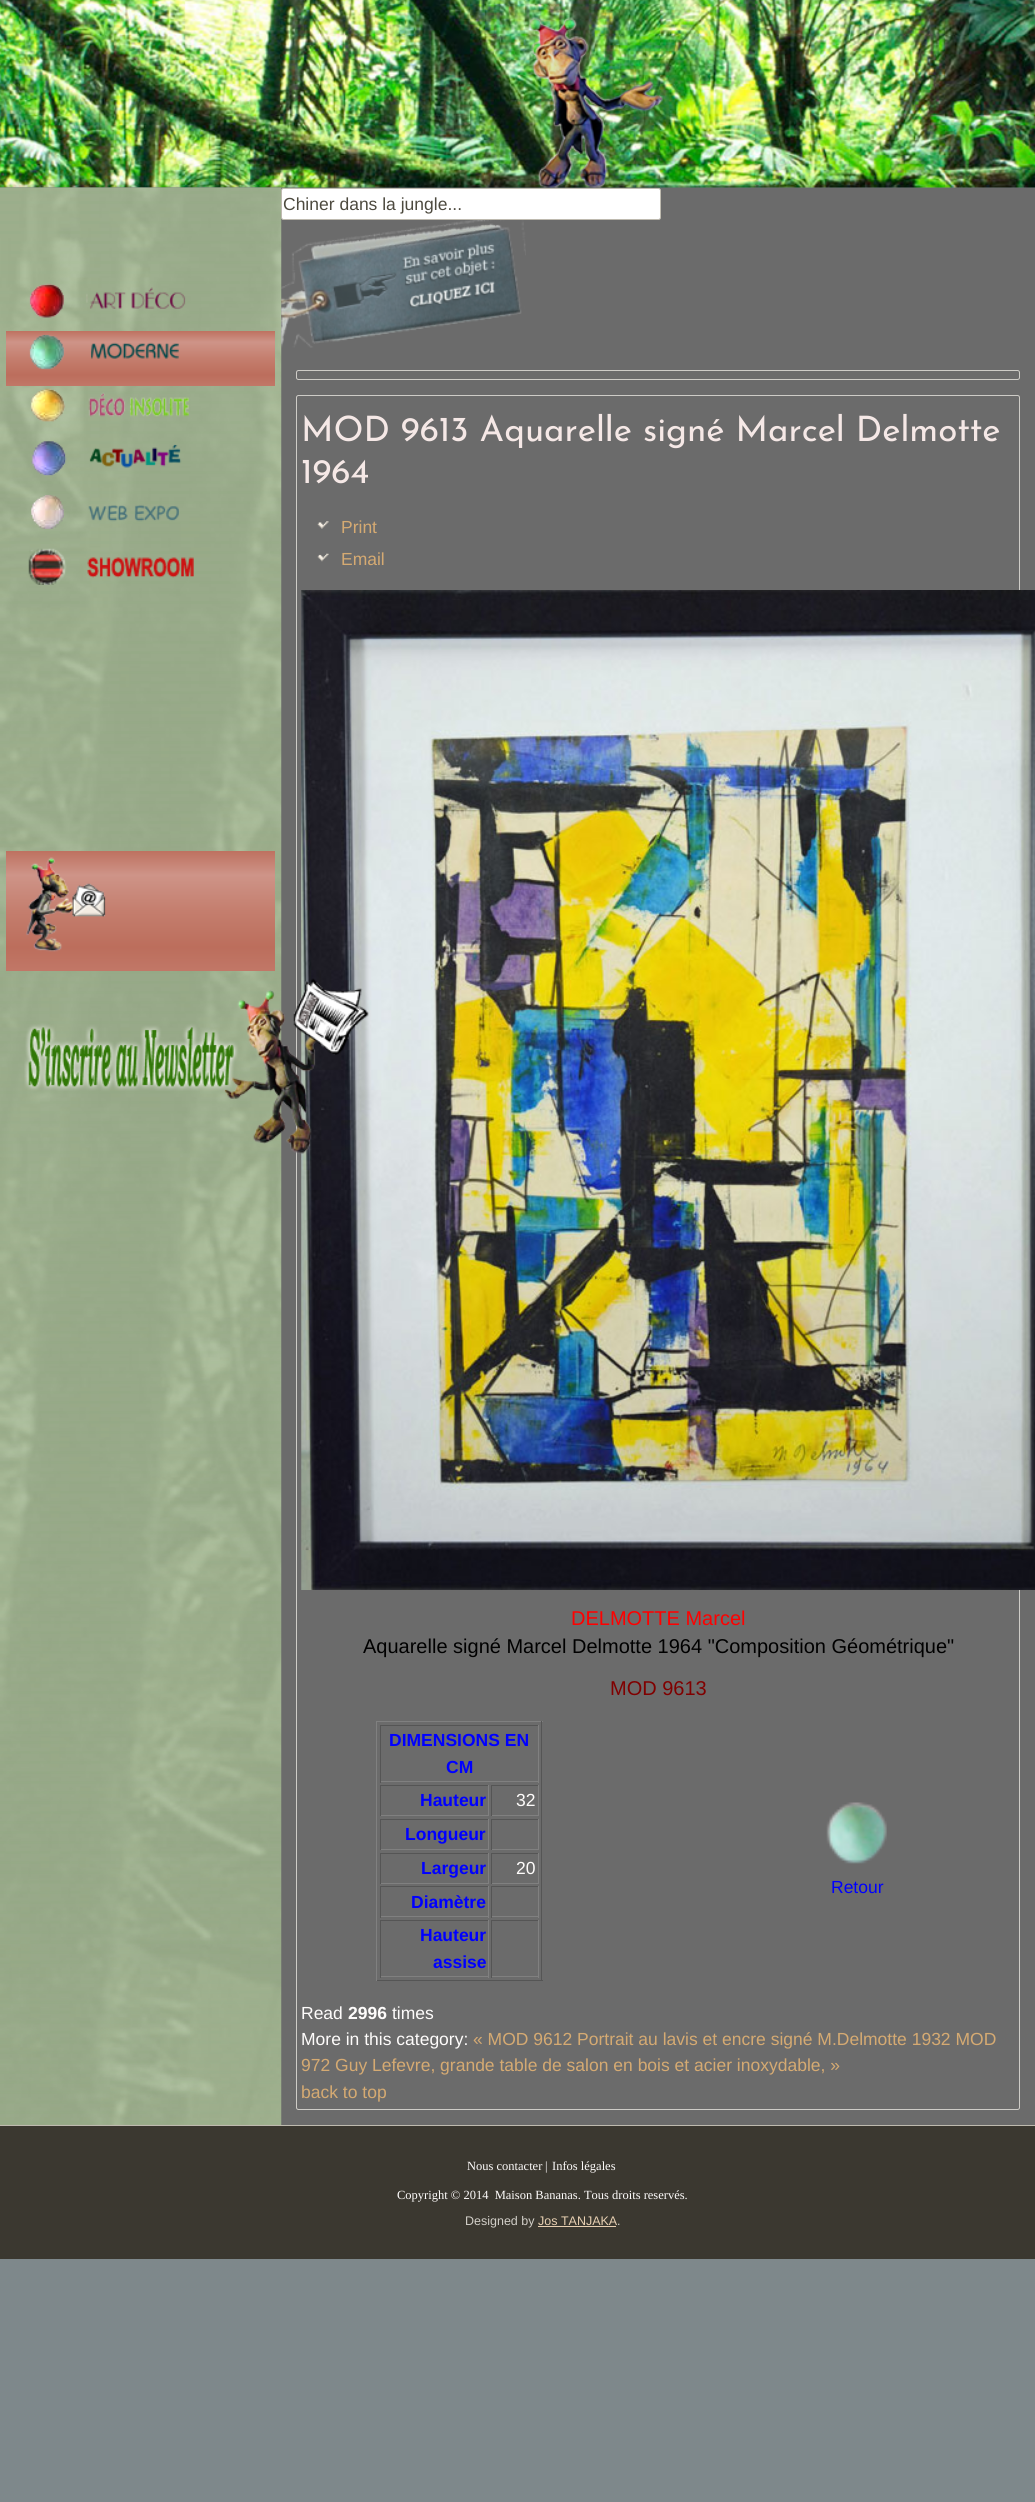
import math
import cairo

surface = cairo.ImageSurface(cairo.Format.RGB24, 1035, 2502)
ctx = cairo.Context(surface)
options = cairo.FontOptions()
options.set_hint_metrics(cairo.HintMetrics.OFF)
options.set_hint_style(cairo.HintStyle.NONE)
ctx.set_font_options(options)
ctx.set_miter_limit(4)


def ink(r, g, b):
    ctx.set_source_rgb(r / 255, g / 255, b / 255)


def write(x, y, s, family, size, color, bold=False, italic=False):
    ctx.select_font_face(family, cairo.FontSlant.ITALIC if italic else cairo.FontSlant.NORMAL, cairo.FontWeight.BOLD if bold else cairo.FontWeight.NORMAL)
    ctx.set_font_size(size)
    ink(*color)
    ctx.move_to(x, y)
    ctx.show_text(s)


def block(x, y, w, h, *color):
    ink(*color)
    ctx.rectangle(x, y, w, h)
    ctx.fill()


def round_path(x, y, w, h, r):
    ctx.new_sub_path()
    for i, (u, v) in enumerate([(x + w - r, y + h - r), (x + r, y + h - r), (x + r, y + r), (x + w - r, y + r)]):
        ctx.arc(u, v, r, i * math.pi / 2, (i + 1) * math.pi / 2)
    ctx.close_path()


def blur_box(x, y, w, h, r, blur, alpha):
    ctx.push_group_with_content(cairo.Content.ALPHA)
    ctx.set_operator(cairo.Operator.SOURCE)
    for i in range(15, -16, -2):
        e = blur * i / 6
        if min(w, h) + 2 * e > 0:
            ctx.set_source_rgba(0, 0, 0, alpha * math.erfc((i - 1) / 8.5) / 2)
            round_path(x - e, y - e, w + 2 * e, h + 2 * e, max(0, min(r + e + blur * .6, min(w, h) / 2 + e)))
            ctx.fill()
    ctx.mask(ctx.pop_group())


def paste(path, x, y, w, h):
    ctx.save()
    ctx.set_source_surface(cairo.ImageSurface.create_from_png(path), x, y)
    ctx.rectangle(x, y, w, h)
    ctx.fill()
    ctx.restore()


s1 = dict(family="Liberation Sans", size=17.5, color=(77, 74, 63))
s2 = dict(family="Josefin Sans", size=35, color=(245, 232, 230))
s3 = dict(family="Liberation Sans", size=17.5, color=(213, 170, 114))
s4 = dict(family="Liberation Sans", size=20, color=(255, 0, 0))
s5 = dict(family="Liberation Sans", size=20, color=(0, 0, 0))
s6 = dict(family="Liberation Sans", size=20, color=(128, 0, 0))
s7 = dict(family="Liberation Sans", size=17.5, color=(0, 0, 255), bold=True)
s8 = dict(family="Liberation Sans", size=17.5, color=(254, 252, 251))
s9 = dict(family="Liberation Sans", size=17.5, color=(0, 0, 255))
s10 = dict(family="Liberation Sans", size=17.5, color=(254, 252, 251), bold=True)
s11 = dict(family="Liberation Serif", size=12.5, color=(254, 252, 251))
s12 = dict(family="Liberation Sans", size=12.5, color=(210, 207, 200))
s13 = dict(family="Liberation Sans", size=12.5, color=(232, 208, 178))

ink(126, 136, 139)
ctx.paint()
paste("pic1.png", 0, 187, 694, 1)
paste("pic2.png", 0, 0, 1035, 188)
ink(0, 0, 0)
blur_box(-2, 185, 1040, 1943, 0, 2, 0.15)
block(281, 188, 754, 1937, 107, 107, 107)
paste("pic3.png", 0, 187, 282, 1938)
paste("pic4.png", 29, 283, 157, 35)
gradient = cairo.LinearGradient(141, 331, 141, 386)
gradient.add_color_stop_rgba(0, 0.745, 0.443, 0.376, 1)
gradient.add_color_stop_rgba(0.2, 0.808, 0.58, 0.533, 1)
gradient.add_color_stop_rgba(0.5, 0.769, 0.494, 0.431, 1)
gradient.add_color_stop_rgba(0.8, 0.737, 0.431, 0.361, 1)
gradient.add_color_stop_rgba(1, 0.757, 0.467, 0.404, 1)
ctx.set_source(gradient)
ctx.rectangle(6, 331, 269, 55)
ctx.fill()
paste("pic5.png", 29, 334, 150, 36)
paste("pic6.png", 30, 388, 159, 34)
paste("pic7.png", 31, 440, 151, 36)
paste("pic8.png", 31, 495, 148, 34)
paste("pic9.png", 28, 548, 166, 37)
gradient = cairo.LinearGradient(141, 851, 141, 971)
gradient.add_color_stop_rgba(0, 0.745, 0.443, 0.376, 1)
gradient.add_color_stop_rgba(0.2, 0.808, 0.58, 0.533, 1)
gradient.add_color_stop_rgba(0.5, 0.769, 0.494, 0.431, 1)
gradient.add_color_stop_rgba(0.8, 0.737, 0.431, 0.361, 1)
gradient.add_color_stop_rgba(1, 0.757, 0.467, 0.404, 1)
ctx.set_source(gradient)
ctx.rectangle(6, 851, 269, 120)
ctx.fill()
paste("pic10.png", 26, 857, 80, 95)
round_path(296.5, 395.5, 723, 1714, 2)
ink(206, 204, 199)
ctx.set_line_width(1)
ctx.stroke()
paste("pic15.png", 301, 590, 734, 1000)
paste("pic11.png", 24, 978, 345, 176)
ink(255, 255, 255)
round_path(281.5, 188.5, 379, 31, 2)
ctx.fill_preserve()
ink(190, 186, 175)
ctx.stroke()
write(283, 210, "Chiner dans la jungle...", **s1)
paste("pic12.png", 281, 220, 245, 128)
round_path(296.5, 370.5, 723, 9, 2)
ink(206, 204, 199)
ctx.stroke()
write(301, 441, "MOD 9613 Aquarelle signé Marcel Delmotte", **s2)
write(301, 483, "1964", **s2)
paste("pic13.png", 317, 521, 12, 8)
write(341, 533, "Print", **s3)
paste("pic14.png", 317, 553, 12, 9)
write(341, 565, "Email", **s3)
write(571, 1625, "DELMOTTE Marcel", **s4)
write(363, 1653, "Aquarelle signé Marcel Delmotte 1964 \"Composition Géométrique\"", **s5)
write(610, 1695, "MOD 9613", **s6)
block(376, 1721, 167, 1, 128, 128, 128)
block(541, 1721, 1, 260, 85, 85, 85)
block(376, 1980, 167, 1, 85, 85, 85)
block(376, 1721, 1, 260, 128, 128, 128)
block(380, 1725, 159, 1, 85, 85, 85)
block(538, 1725, 1, 58, 128, 128, 128)
block(380, 1781, 159, 1, 128, 128, 128)
block(380, 1725, 1, 58, 85, 85, 85)
write(389, 1746, "DIMENSIONS EN", **s7)
write(446, 1773, "CM", **s7)
block(380, 1785, 109, 1, 85, 85, 85)
block(488, 1785, 1, 31, 128, 128, 128)
block(380, 1815, 109, 1, 128, 128, 128)
block(380, 1785, 1, 31, 85, 85, 85)
write(420, 1806, "Hauteur", **s7)
block(491, 1785, 48, 1, 85, 85, 85)
block(538, 1785, 1, 31, 128, 128, 128)
block(491, 1815, 48, 1, 128, 128, 128)
block(491, 1785, 1, 31, 85, 85, 85)
write(516, 1806, "32", **s8)
block(380, 1819, 109, 1, 85, 85, 85)
block(488, 1819, 1, 31, 128, 128, 128)
block(380, 1849, 109, 1, 128, 128, 128)
block(380, 1819, 1, 31, 85, 85, 85)
write(405, 1840, "Longueur", **s7)
block(491, 1819, 48, 1, 85, 85, 85)
block(538, 1819, 1, 31, 128, 128, 128)
block(491, 1849, 48, 1, 128, 128, 128)
block(491, 1819, 1, 31, 85, 85, 85)
block(380, 1853, 109, 1, 85, 85, 85)
block(488, 1853, 1, 31, 128, 128, 128)
block(380, 1883, 109, 1, 128, 128, 128)
block(380, 1853, 1, 31, 85, 85, 85)
write(421, 1874, "Largeur", **s7)
block(491, 1853, 48, 1, 85, 85, 85)
block(538, 1853, 1, 31, 128, 128, 128)
block(491, 1883, 48, 1, 128, 128, 128)
block(491, 1853, 1, 31, 85, 85, 85)
write(516, 1874, "20", **s8)
block(380, 1886, 109, 1, 85, 85, 85)
block(488, 1886, 1, 32, 128, 128, 128)
block(380, 1916, 109, 1, 128, 128, 128)
block(380, 1886, 1, 32, 85, 85, 85)
write(411, 1908, "Diamètre", **s7)
block(491, 1886, 48, 1, 85, 85, 85)
block(538, 1886, 1, 32, 128, 128, 128)
block(491, 1916, 48, 1, 128, 128, 128)
block(491, 1886, 1, 32, 85, 85, 85)
block(380, 1920, 109, 1, 85, 85, 85)
block(488, 1920, 1, 58, 128, 128, 128)
block(380, 1976, 109, 1, 128, 128, 128)
block(380, 1920, 1, 58, 85, 85, 85)
write(420, 1941, "Hauteur", **s7)
write(433, 1968, "assise", **s7)
block(491, 1920, 48, 1, 85, 85, 85)
block(538, 1920, 1, 58, 128, 128, 128)
block(491, 1976, 48, 1, 128, 128, 128)
block(491, 1920, 1, 58, 85, 85, 85)
paste("pic16.png", 826, 1802, 61, 62)
write(831, 1893, "Retour", **s9)
write(301, 2019, "Read", **s8)
write(348, 2019, "2996", **s10)
write(392, 2019, "times", **s8)
write(301, 2045, "More in this category:", **s8)
write(473, 2045, "« MOD 9612 Portrait au lavis et encre signé M.Delmotte 1932 MOD", **s3)
write(301, 2071, "972 Guy Lefevre, grande table de salon en bois et acier inoxydable, »", **s3)
write(301, 2098, "back to top", **s3)
block(0, 2126, 1035, 133, 59, 56, 48)
block(0, 2125, 1035, 1, 190, 186, 175)
write(467, 2170, "Nous contacter", **s11)
write(545, 2170, "|", **s11)
write(552, 2170, "Infos légales", **s11)
write(397, 2199, "Copyright © 2014  Maison Bananas. Tous droits reservés.", **s11)
write(465, 2225, "Designed by", **s12)
write(538, 2225, "Jos TANJAKA", **s13)
write(617, 2225, ".", **s12)
block(538, 2226, 78, 1, 232, 208, 178)
surface.write_to_png("screenshot.png")
